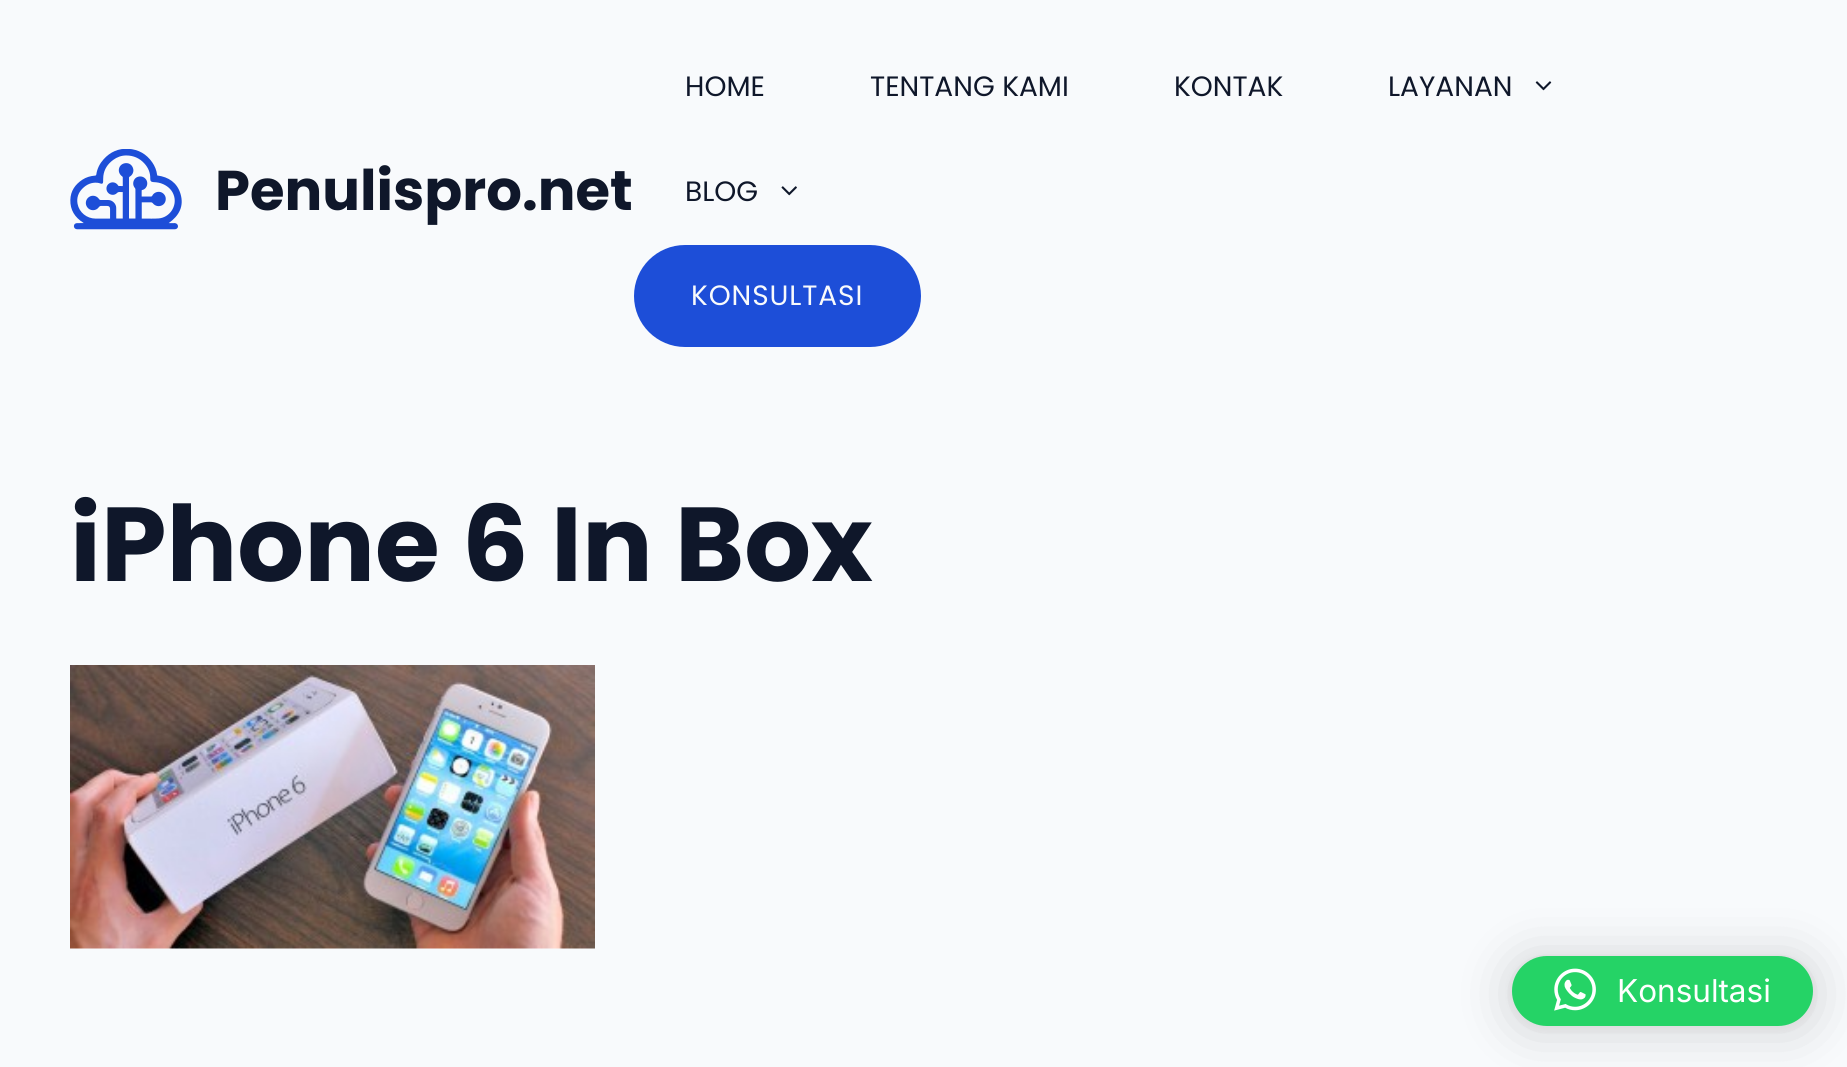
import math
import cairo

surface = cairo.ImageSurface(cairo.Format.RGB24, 1847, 1067)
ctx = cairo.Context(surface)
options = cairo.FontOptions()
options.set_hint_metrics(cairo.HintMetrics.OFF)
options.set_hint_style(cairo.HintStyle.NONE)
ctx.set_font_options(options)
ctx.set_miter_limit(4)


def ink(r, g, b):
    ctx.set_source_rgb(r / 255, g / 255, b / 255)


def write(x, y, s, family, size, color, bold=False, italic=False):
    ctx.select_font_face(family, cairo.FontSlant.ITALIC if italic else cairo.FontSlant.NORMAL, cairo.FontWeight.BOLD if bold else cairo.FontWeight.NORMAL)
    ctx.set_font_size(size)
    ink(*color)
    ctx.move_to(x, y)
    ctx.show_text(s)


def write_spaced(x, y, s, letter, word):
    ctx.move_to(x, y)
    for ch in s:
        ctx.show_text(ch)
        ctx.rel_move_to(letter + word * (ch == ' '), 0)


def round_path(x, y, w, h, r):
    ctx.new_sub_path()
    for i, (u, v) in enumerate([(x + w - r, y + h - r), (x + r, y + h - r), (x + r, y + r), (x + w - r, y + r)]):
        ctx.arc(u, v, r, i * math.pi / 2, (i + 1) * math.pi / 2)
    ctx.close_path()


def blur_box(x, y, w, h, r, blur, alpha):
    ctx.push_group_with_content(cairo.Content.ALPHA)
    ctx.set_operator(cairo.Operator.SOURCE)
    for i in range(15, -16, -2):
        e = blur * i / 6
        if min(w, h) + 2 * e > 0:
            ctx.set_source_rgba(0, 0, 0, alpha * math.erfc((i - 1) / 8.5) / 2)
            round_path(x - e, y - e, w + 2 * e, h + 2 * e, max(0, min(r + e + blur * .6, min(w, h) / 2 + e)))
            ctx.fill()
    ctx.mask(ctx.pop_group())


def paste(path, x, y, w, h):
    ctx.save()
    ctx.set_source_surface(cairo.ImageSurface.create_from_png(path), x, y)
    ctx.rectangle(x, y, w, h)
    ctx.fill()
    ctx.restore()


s1 = dict(family="Poppins", size=56, color=(15, 23, 42), bold=True)
s2 = dict(family="Poppins", size=28, color=(15, 23, 42))
s3 = dict(family="Poppins", size=105, color=(15, 23, 42), bold=True)
s4 = dict(family="Inter", size=31.5, color=(255, 255, 255))

ink(248, 250, 252)
ctx.paint()
paste("pic1.png", 70, 149, 112, 81)
write(215, 210, "Penulispro.net", **s1)
write(685, 96, "HOME", **s2)
write(870, 96, "TENTANG KAMI", **s2)
write(1174, 96, "KONTAK", **s2)
write(1388, 96, "LAYANAN", **s2)
paste("pic2.png", 1535, 81, 17, 10)
write(685, 201, "BLOG", **s2)
paste("pic3.png", 781, 186, 16, 10)
ink(29, 78, 216)
round_path(634, 245, 287, 102, 51)
ctx.fill()
ink(248, 250, 252)
write_spaced(691, 305, "KONSULTASI", 0.9, 0)
write(70, 581, "iPhone 6 In Box", **s3)
paste("pic4.png", 70, 665, 525, 284)
ink(0, 0, 0)
blur_box(1512, 959, 301, 70, 35, 28, 0.16)
blur_box(1512, 957, 301, 70, 35, 5, 0.06)
ink(37, 211, 102)
round_path(1512, 956, 301, 70, 35)
ctx.fill()
paste("pic5.png", 1554, 968, 42, 43)
write(1617, 1002, "Konsultasi", **s4)
surface.write_to_png("screenshot.png")
